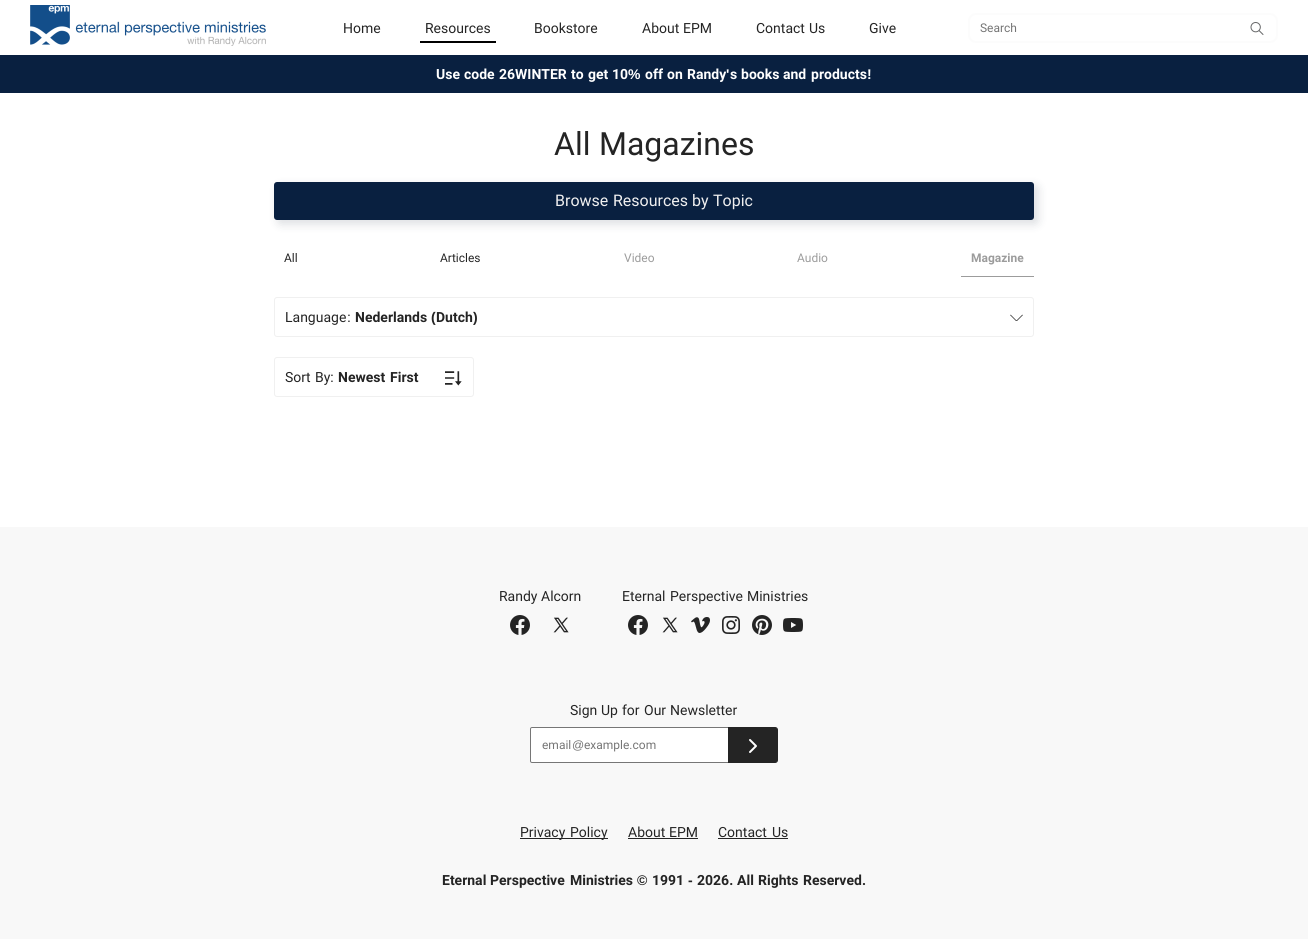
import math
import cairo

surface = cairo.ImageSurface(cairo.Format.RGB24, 1308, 939)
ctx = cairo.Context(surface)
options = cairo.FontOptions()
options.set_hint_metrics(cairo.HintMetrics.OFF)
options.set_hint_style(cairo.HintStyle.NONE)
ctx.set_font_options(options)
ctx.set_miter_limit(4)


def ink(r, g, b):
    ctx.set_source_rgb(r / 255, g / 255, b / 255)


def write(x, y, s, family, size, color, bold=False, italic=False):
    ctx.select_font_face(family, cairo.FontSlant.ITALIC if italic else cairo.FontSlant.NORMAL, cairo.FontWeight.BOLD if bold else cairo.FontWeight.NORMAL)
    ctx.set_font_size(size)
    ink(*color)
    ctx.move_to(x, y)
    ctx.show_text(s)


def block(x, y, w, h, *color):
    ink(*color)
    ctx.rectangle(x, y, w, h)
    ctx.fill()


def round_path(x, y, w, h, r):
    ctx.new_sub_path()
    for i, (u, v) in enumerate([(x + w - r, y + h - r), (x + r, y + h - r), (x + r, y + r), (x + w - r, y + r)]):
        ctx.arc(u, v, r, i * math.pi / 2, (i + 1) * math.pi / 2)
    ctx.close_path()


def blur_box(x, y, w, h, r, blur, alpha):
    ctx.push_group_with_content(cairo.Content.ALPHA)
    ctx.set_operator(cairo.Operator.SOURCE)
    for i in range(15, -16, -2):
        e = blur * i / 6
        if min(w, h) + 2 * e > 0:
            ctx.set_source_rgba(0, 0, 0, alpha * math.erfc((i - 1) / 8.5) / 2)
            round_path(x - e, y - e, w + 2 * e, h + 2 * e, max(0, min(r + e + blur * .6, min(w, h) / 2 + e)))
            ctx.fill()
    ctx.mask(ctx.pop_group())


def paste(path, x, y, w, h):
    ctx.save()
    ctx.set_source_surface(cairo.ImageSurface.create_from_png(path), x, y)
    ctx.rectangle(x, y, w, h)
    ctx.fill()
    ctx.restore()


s1 = dict(family="Roboto", size=14, color=(36, 36, 36))
s2 = dict(family="Roboto", size=12, color=(117, 117, 117))
s3 = dict(family="Roboto", size=14, color=(255, 255, 255), bold=True)
s4 = dict(family="Liberation Sans", size=14, color=(255, 255, 255), bold=True)
s5 = dict(family="Roboto", size=32, color=(36, 36, 36))
s6 = dict(family="Roboto", size=16, color=(240, 240, 240))
s7 = dict(family="Roboto", size=12, color=(36, 36, 36))
s8 = dict(family="Roboto", size=12, color=(156, 156, 156))
s9 = dict(family="Roboto", size=12, color=(156, 156, 156), bold=True)
s10 = dict(family="Liberation Sans", size=14, color=(36, 36, 36))
s11 = dict(family="Roboto", size=14, color=(36, 36, 36), bold=True)
s12 = dict(family="Liberation Sans", size=14, color=(36, 36, 36), bold=True)
s13 = dict(family="Liberation Sans", size=12, color=(117, 117, 117))

ink(255, 255, 255)
ctx.paint()
paste("pic1.png", 30, 5, 236, 41)
write(343, 33, "Home", **s1)
write(425, 33, "Resources", **s1)
block(420, 41, 76, 2, 0, 0, 0)
write(534, 33, "Bookstore", **s1)
write(642, 33, "About", **s1)
write(683, 33, "EPM", **s1)
write(756, 33, "Contact", **s1)
write(809, 33, "Us", **s1)
write(869, 33, "Give", **s1)
paste("pic2.png", 1250, 22, 14, 13)
round_path(969, 14, 308, 28, 7)
ink(252, 252, 252)
ctx.stroke()
write(980, 32, "Search", **s2)
block(0, 55, 1308, 38, 9, 32, 64)
write(436, 79, "Use", **s3)
write(464, 79, "code", **s3)
write(499, 79, "26WINTER", **s3)
write(571, 79, "to", **s3)
write(588, 79, "get", **s3)
write(612, 79, "10", **s3)
write(628, 79, "%", **s4)
write(645, 79, "off", **s3)
write(667, 79, "on", **s3)
write(687, 79, "Randy", **s3)
write(726, 79, "'", **s4)
write(730, 79, "s", **s3)
write(741, 79, "books", **s3)
write(783, 79, "and", **s3)
write(811, 79, "products", **s3)
write(867, 79, "!", **s4)
write(554, 155, "All", **s5)
write(599, 155, "Magazines", **s5)
ink(19, 34, 54)
blur_box(278, 186, 760, 38, 3, 5, 0.15)
ink(9, 32, 64)
round_path(274, 182, 760, 38, 3)
ctx.fill()
write(555, 206, "Browse", **s6)
write(613, 206, "Resources", **s6)
write(692, 206, "by", **s6)
write(713, 206, "Topic", **s6)
write(284, 262, "All", **s7)
write(440, 262, "Articles", **s7)
write(624, 262, "Video", **s8)
write(797, 262, "Audio", **s8)
block(961, 276, 73, 1, 156, 156, 156)
write(971, 262, "Magazine", **s9)
round_path(274.5, 297.5, 759, 39, 2.5)
ink(240, 240, 240)
ctx.set_line_width(1)
ctx.stroke()
write(285, 322, "Language", **s1)
write(347, 322, ":", **s10)
write(355, 322, "Nederlands", **s11)
write(431, 322, "(", **s12)
write(436, 322, "Dutch", **s11)
write(473, 322, ")", **s12)
paste("pic3.png", 1010, 314, 13, 7)
round_path(274.5, 357.5, 199, 39, 2.5)
ink(240, 240, 240)
ctx.stroke()
write(285, 382, "Sort", **s1)
write(315, 382, "By", **s1)
write(330, 382, ":", **s10)
write(338, 382, "Newest", **s11)
write(390, 382, "First", **s11)
paste("pic4.png", 445, 371, 17, 15)
block(0, 527, 1308, 412, 248, 248, 248)
write(499, 601, "Randy", **s1)
write(541, 601, "Alcorn", **s1)
paste("pic5.png", 510, 615, 20, 20)
paste("pic6.png", 553, 617, 16, 16)
write(622, 601, "Eternal", **s1)
write(670, 601, "Perspective", **s1)
write(747, 601, "Ministries", **s1)
paste("pic5.png", 628, 615, 20, 20)
paste("pic6.png", 662, 617, 16, 16)
paste("pic7.png", 691, 617, 19, 16)
paste("pic8.png", 722, 616, 18, 18)
paste("pic9.png", 752, 615, 20, 20)
paste("pic10.png", 783, 618, 20, 14)
write(570, 715, "Sign", **s1)
write(601, 715, "Up", **s1)
write(622, 715, "for", **s1)
write(644, 715, "Our", **s1)
write(670, 715, "Newsletter", **s1)
ink(255, 255, 255)
round_path(530.5, 727.5, 199, 35, 1.5)
ctx.fill_preserve()
ink(118, 118, 118)
ctx.stroke()
write(542, 749, "email", **s2)
write(572, 749, "@", **s13)
write(584, 749, "example.com", **s2)
ink(36, 36, 36)
ctx.new_path()
ctx.move_to(728.5, 727.5)
ctx.line_to(775, 727.5)
ctx.curve_to(776.5, 727.5, 777.5, 728.5, 777.5, 730)
ctx.line_to(777.5, 760)
ctx.curve_to(777.5, 761.5, 776.5, 762.5, 775, 762.5)
ctx.line_to(728.5, 762.5)
ctx.close_path()
ctx.fill_preserve()
ctx.stroke()
ctx.new_path()
ctx.move_to(750, 752)
ctx.line_to(756, 746)
ctx.line_to(750, 740)
ink(255, 255, 255)
ctx.set_line_width(2)
ctx.set_line_cap(cairo.LineCap.ROUND)
ctx.set_line_join(cairo.LineJoin.ROUND)
ctx.stroke()
block(520, 838, 88, 1, 36, 36, 36)
write(520, 837, "Privacy", **s1)
write(570, 837, "Policy", **s1)
write(628, 837, "About", **s1)
block(628, 838, 70, 1, 36, 36, 36)
write(669, 837, "EPM", **s1)
write(718, 837, "Contact", **s1)
write(772, 837, "Us", **s1)
block(718, 838, 70, 1, 36, 36, 36)
write(442, 885, "Eternal", **s11)
write(490, 885, "Perspective", **s11)
write(570, 885, "Ministries", **s11)
write(637, 885, "©", **s12)
write(652, 885, "1991", **s11)
write(688, 885, "-", **s12)
write(697, 885, "2026.", **s11)
write(737, 885, "All", **s11)
write(758, 885, "Rights", **s11)
write(803, 885, "Reserved.", **s11)
surface.write_to_png("screenshot.png")
